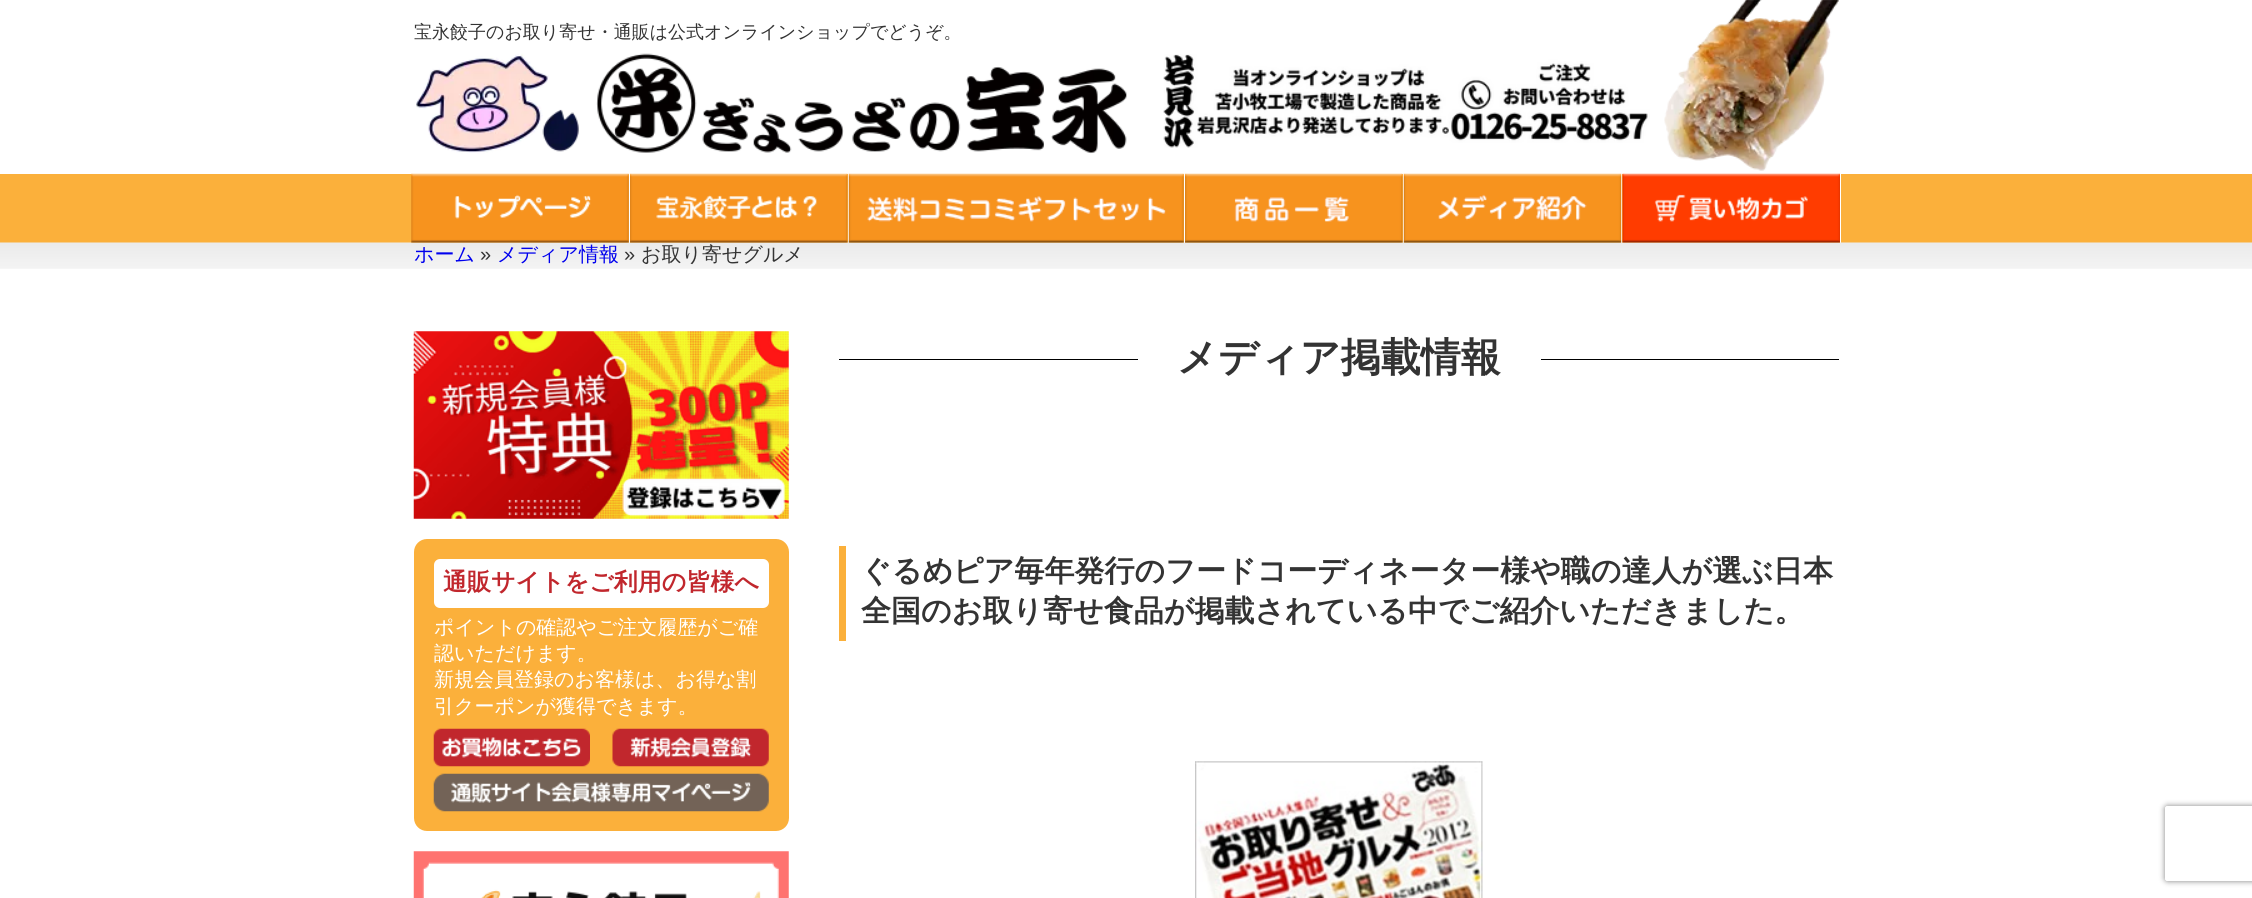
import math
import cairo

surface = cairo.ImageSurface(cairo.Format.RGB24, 2252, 898)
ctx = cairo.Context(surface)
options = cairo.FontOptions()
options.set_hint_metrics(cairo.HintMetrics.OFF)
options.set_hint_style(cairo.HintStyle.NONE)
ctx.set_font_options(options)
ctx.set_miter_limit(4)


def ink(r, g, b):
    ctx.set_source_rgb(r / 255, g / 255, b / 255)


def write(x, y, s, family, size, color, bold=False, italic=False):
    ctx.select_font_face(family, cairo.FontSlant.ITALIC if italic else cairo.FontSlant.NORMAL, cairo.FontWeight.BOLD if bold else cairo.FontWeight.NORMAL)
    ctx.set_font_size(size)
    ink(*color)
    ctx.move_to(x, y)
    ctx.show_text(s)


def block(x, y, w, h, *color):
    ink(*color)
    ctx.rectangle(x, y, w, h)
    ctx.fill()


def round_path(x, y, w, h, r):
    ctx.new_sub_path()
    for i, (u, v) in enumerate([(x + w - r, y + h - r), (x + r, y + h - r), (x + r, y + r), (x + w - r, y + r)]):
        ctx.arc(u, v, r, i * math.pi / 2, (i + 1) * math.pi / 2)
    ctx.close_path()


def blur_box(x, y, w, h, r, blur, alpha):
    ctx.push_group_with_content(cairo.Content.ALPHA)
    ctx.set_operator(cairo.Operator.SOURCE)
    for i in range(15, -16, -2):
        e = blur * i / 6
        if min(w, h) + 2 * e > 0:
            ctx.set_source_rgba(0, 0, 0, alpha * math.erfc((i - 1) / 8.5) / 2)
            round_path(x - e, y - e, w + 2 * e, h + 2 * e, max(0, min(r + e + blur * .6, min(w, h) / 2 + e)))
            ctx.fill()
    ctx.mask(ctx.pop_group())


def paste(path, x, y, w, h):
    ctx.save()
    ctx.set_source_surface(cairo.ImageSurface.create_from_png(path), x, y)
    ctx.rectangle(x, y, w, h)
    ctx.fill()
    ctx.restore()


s1 = dict(family="WenQuanYi Zen Hei Medium", size=18, color=(51, 51, 51))
s2 = dict(family="WenQuanYi Zen Hei Medium", size=20, color=(0, 0, 238))
s3 = dict(family="Liberation Sans", size=20, color=(51, 51, 51))
s4 = dict(family="WenQuanYi Zen Hei Medium", size=20, color=(51, 51, 51))
s5 = dict(family="WenQuanYi Zen Hei", size=40, color=(51, 51, 51), bold=True)
s6 = dict(family="WenQuanYi Zen Hei", size=30, color=(51, 51, 51), bold=True)
s7 = dict(family="WenQuanYi Zen Hei", size=24, color=(193, 39, 45), bold=True)
s8 = dict(family="WenQuanYi Zen Hei Medium", size=20, color=(255, 255, 255))

ink(255, 255, 255)
ctx.paint()
paste("pic1.png", 1664, 0, 175, 171)
write(414, 38, "宝永餃子のお取り寄せ・通販は公式オンラインショップでどうぞ。", **s1)
paste("pic2.png", 416, 53, 711, 101)
paste("pic3.png", 1163, 54, 487, 94)
block(0, 174, 2252, 69, 251, 176, 59)
block(629, 174, 1, 69, 255, 255, 255)
block(848, 174, 1, 69, 255, 255, 255)
block(1184, 174, 1, 69, 255, 255, 255)
block(1403, 174, 1, 69, 255, 255, 255)
block(1621, 174, 1, 69, 255, 255, 255)
block(1840, 174, 1, 69, 255, 255, 255)
paste("pic10.png", 0, 242, 2252, 27)
paste("pic4.png", 411, 173, 218, 70)
paste("pic5.png", 630, 173, 218, 70)
paste("pic6.png", 848, 173, 336, 70)
paste("pic7.png", 1185, 173, 218, 70)
paste("pic8.png", 1403, 173, 219, 70)
paste("pic9.png", 1622, 173, 218, 70)
write(414, 261, "ホーム", **s2)
write(480, 261, "»", **s3)
write(497, 261, "メディア情報", **s2)
write(624, 261, "»", **s3)
write(641, 261, "お取り寄せグルメ", **s4)
block(839, 359, 299, 1, 0, 0, 0)
write(1177, 371, "メディア掲載情報", **s5)
block(1541, 359, 298, 1, 0, 0, 0)
block(839, 546, 7, 95, 251, 176, 59)
write(861, 581, "ぐるめピア毎年発行のフードコーディネーター様や職の達人が選ぶ日本", **s6)
write(861, 621, "全国のお取り寄せ食品が掲載されている中でご紹介いただきました。", **s6)
paste("pic11.png", 1195, 761, 288, 137)
paste("pic12.png", 413, 331, 376, 188)
ink(251, 176, 59)
round_path(414, 539, 375, 292, 13)
ctx.fill()
ink(255, 255, 255)
round_path(434, 559, 335, 49, 6)
ctx.fill()
write(443, 590, "通販サイトをご利用の皆様へ", **s7)
write(434, 634, "ポイントの確認やご注文履歴がご確", **s8)
write(434, 660, "認いただけます。", **s8)
write(434, 686, "新規会員登録のお客様は、お得な割", **s8)
write(434, 713, "引クーポンが獲得できます。", **s8)
paste("pic13.png", 433, 728, 157, 39)
paste("pic14.png", 612, 728, 157, 39)
paste("pic15.png", 433, 773, 336, 39)
paste("pic16.png", 413, 851, 376, 47)
ctx.save()
ctx.set_fill_rule(cairo.FillRule.EVEN_ODD)
ctx.new_path()
ctx.move_to(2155, 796)
ctx.line_to(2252, 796)
ctx.line_to(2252, 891)
ctx.line_to(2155, 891)
ctx.close_path()
ctx.move_to(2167.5, 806)
ctx.line_to(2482.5, 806)
ctx.curve_to(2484, 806, 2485, 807, 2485, 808.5)
ctx.line_to(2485, 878.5)
ctx.curve_to(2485, 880, 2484, 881, 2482.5, 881)
ctx.line_to(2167.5, 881)
ctx.curve_to(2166, 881, 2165, 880, 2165, 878.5)
ctx.line_to(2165, 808.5)
ctx.curve_to(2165, 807, 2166, 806, 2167.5, 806)
ctx.close_path()
ctx.clip()
ink(128, 128, 128)
blur_box(2165, 806, 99, 75, 2.5, 3, 1)
ctx.restore()
surface.write_to_png("screenshot.png")
